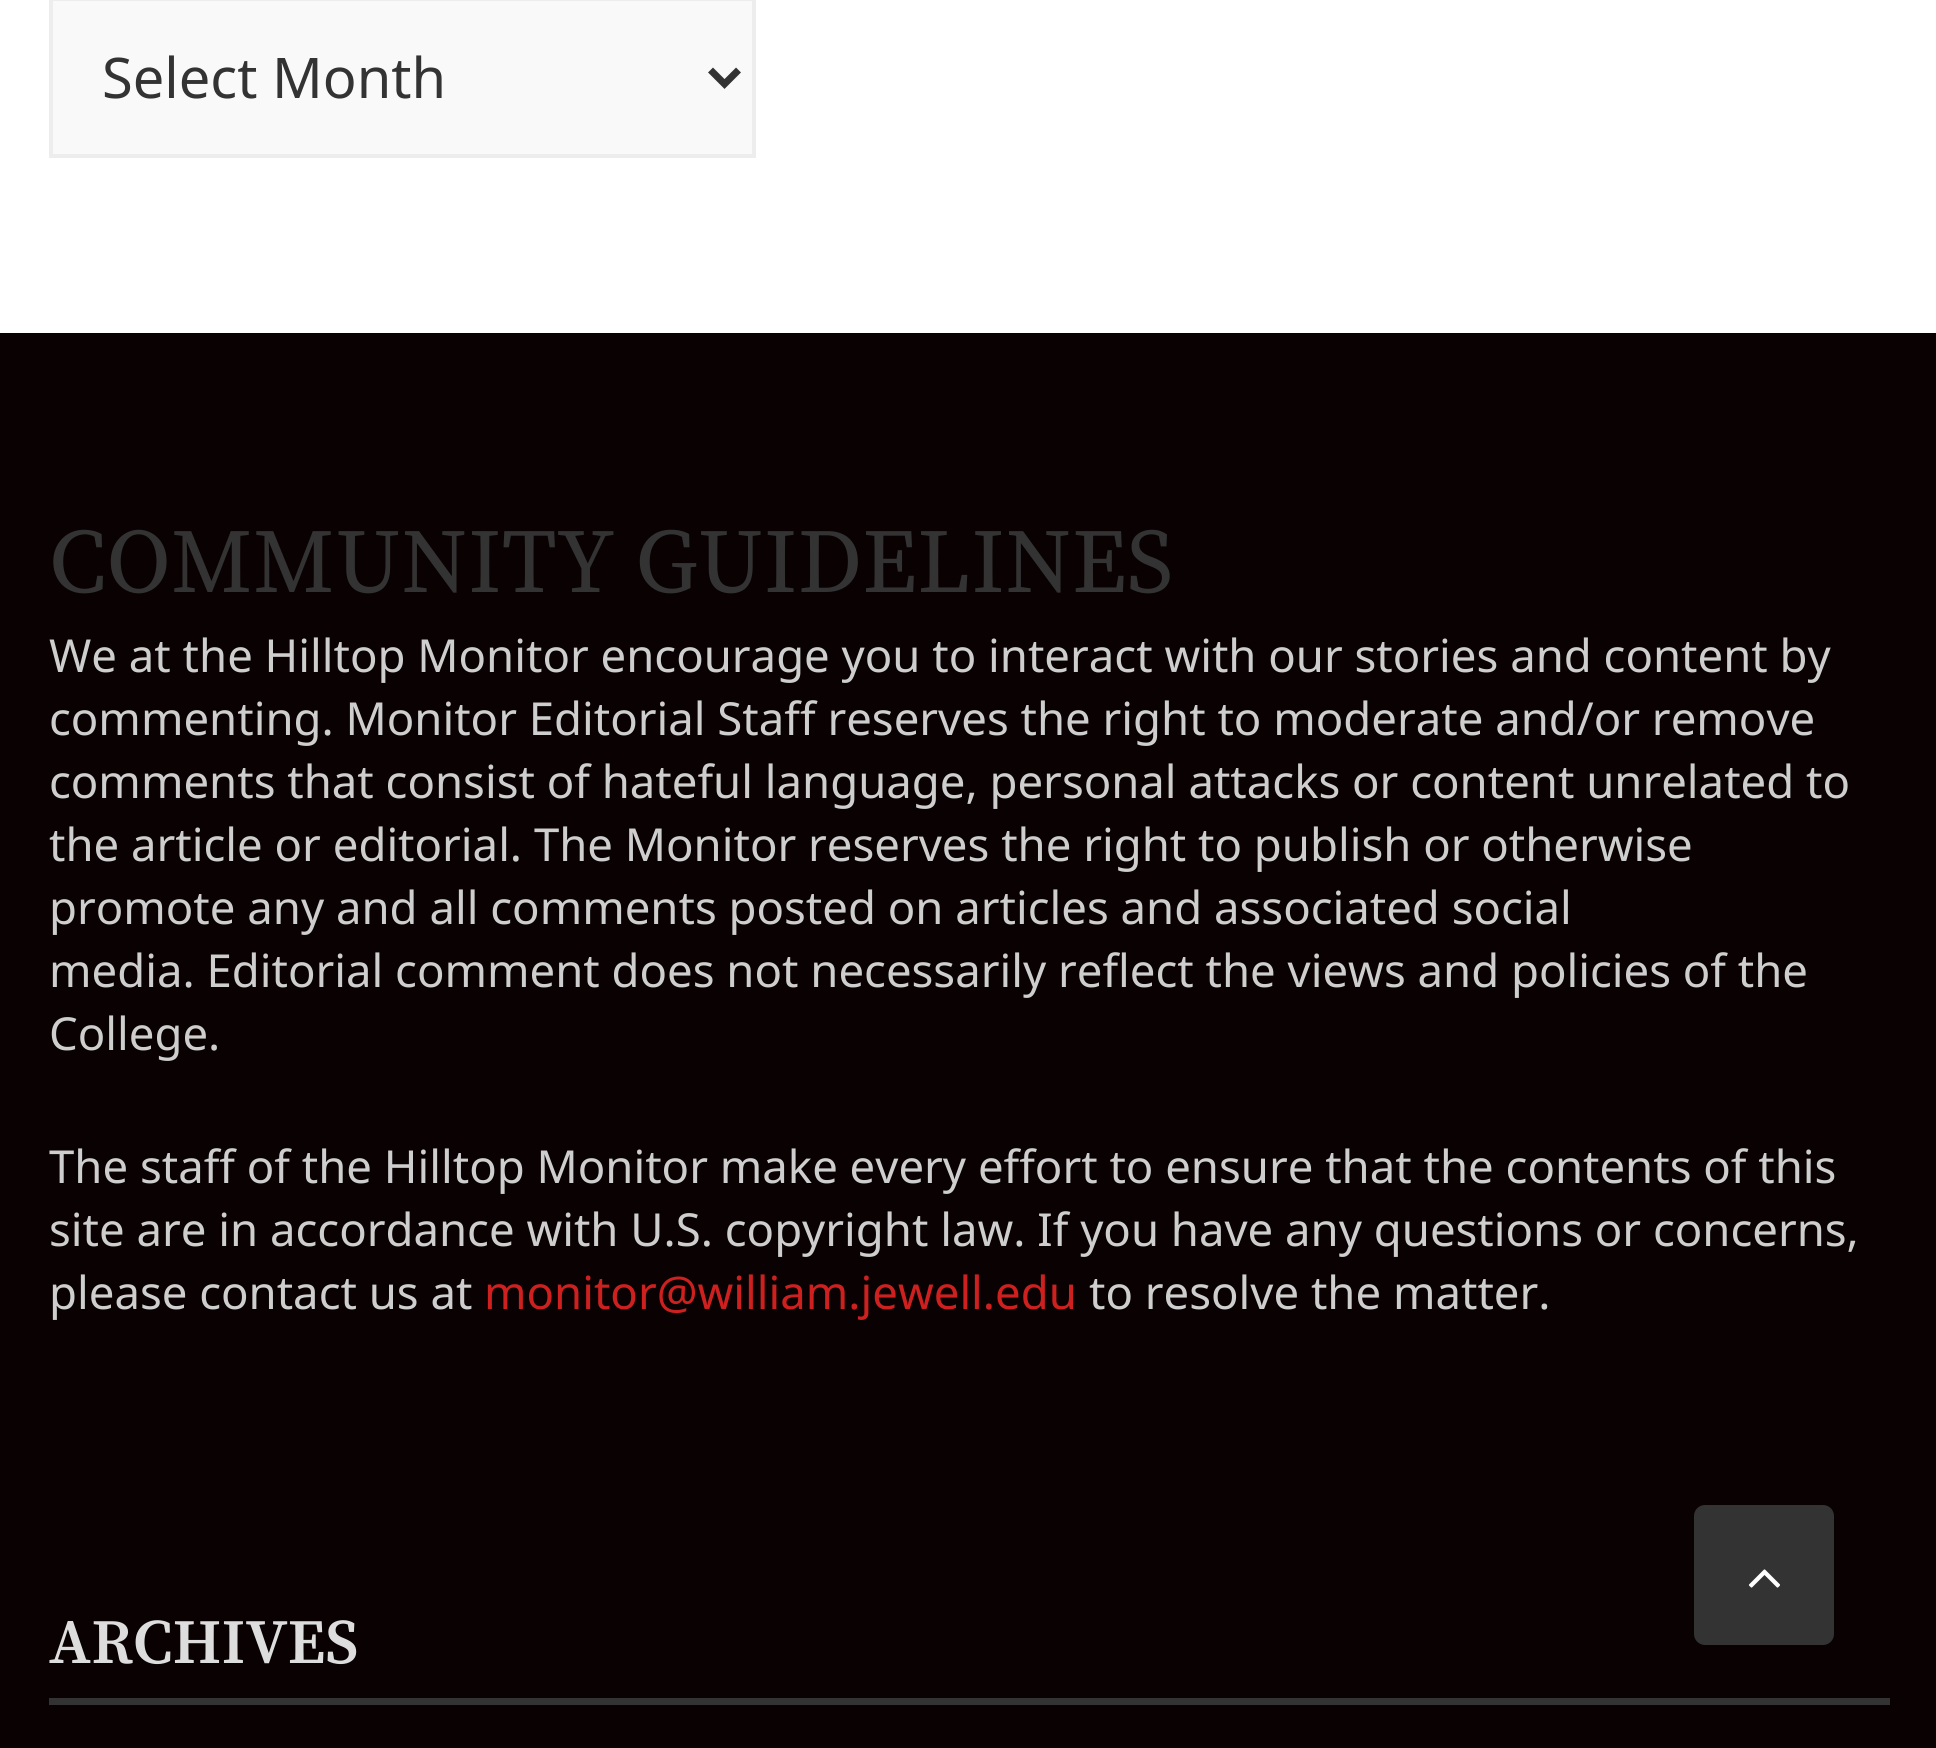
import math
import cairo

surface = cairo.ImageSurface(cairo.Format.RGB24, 1936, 1748)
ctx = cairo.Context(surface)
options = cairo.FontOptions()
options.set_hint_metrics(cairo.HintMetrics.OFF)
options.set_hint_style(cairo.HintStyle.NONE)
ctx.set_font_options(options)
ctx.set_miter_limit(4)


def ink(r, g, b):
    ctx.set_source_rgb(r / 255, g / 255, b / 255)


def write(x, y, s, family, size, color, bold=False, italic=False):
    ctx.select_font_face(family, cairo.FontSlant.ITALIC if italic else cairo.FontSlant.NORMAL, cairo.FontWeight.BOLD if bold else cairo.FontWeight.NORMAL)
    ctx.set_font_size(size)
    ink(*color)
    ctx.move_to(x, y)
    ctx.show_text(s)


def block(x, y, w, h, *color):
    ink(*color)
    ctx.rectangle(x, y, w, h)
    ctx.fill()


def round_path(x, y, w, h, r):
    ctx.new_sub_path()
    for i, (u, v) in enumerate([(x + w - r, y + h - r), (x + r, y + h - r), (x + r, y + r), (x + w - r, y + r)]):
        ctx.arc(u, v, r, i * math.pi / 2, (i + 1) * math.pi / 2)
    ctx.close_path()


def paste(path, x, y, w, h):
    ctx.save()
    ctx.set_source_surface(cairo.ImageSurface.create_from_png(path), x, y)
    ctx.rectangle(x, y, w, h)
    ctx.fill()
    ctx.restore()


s1 = dict(family="Noto Sans", size=56, color=(51, 51, 51))
s2 = dict(family="Source Serif Pro", size=91, color=(51, 51, 51))
s3 = dict(family="Noto Sans", size=45.5, color=(206, 206, 206))
s4 = dict(family="Noto Sans", size=45.5, color=(207, 32, 32))
s5 = dict(family="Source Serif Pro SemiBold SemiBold", size=63, color=(221, 221, 221))

ink(255, 255, 255)
ctx.paint()
ink(249, 249, 249)
ctx.rectangle(51, -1, 703, 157)
ctx.fill_preserve()
ink(237, 237, 237)
ctx.set_line_width(4)
ctx.stroke()
ctx.new_path()
ctx.move_to(710.5, 70)
ctx.line_to(724.5, 84)
ctx.line_to(738.5, 70)
ink(51, 51, 51)
ctx.set_line_width(7)
ctx.stroke()
write(102, 98, "Select Month", **s1)
block(0, 333, 1936, 1415, 10, 2, 2)
write(49, 592, "COMMUNITY GUIDELINES", **s2)
write(49, 672, "We at the Hilltop Monitor encourage you to interact with our stories and content by", **s3)
write(49, 735, "commenting. Monitor Editorial Staff reserves the right to moderate and/or remove", **s3)
write(49, 798, "comments that consist of hateful language, personal attacks or content unrelated to", **s3)
write(49, 861, "the article or editorial. The Monitor reserves the right to publish or otherwise", **s3)
write(49, 924, "promote any and all comments posted on articles and associated social", **s3)
write(49, 987, "media. Editorial comment does not necessarily reflect the views and policies of the", **s3)
write(49, 1050, "College.", **s3)
write(49, 1183, "The staff of the Hilltop Monitor make every effort to ensure that the contents of this", **s3)
write(49, 1246, "site are in accordance with U.S. copyright law. If you have any questions or concerns,", **s3)
write(49, 1309, "please contact us at", **s3)
write(484, 1309, "monitor@william.jewell.edu", **s4)
write(1089, 1309, "to resolve the matter.", **s3)
block(49, 1698, 1841, 7, 51, 51, 51)
write(49, 1663, "ARCHIVES", **s5)
ink(51, 51, 51)
round_path(1694, 1505, 140, 140, 11)
ctx.fill()
paste("pic1.png", 1748, 1569, 32, 19)
surface.write_to_png("screenshot.png")
